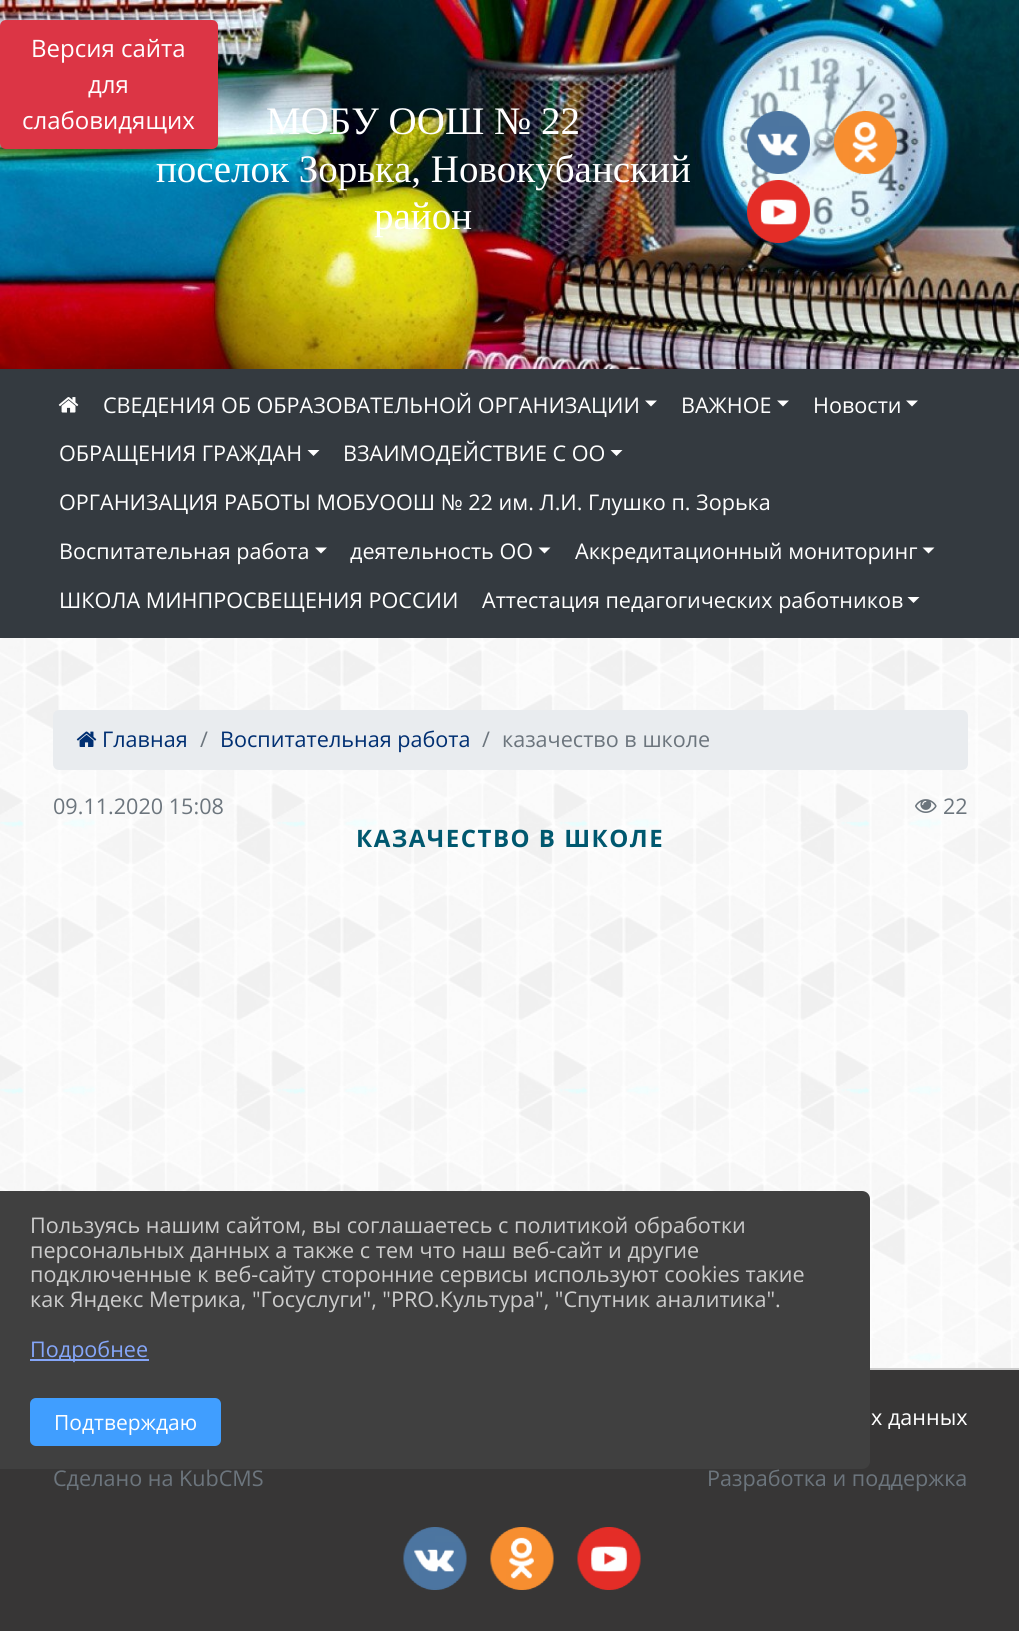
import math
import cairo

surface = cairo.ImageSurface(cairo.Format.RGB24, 1019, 1631)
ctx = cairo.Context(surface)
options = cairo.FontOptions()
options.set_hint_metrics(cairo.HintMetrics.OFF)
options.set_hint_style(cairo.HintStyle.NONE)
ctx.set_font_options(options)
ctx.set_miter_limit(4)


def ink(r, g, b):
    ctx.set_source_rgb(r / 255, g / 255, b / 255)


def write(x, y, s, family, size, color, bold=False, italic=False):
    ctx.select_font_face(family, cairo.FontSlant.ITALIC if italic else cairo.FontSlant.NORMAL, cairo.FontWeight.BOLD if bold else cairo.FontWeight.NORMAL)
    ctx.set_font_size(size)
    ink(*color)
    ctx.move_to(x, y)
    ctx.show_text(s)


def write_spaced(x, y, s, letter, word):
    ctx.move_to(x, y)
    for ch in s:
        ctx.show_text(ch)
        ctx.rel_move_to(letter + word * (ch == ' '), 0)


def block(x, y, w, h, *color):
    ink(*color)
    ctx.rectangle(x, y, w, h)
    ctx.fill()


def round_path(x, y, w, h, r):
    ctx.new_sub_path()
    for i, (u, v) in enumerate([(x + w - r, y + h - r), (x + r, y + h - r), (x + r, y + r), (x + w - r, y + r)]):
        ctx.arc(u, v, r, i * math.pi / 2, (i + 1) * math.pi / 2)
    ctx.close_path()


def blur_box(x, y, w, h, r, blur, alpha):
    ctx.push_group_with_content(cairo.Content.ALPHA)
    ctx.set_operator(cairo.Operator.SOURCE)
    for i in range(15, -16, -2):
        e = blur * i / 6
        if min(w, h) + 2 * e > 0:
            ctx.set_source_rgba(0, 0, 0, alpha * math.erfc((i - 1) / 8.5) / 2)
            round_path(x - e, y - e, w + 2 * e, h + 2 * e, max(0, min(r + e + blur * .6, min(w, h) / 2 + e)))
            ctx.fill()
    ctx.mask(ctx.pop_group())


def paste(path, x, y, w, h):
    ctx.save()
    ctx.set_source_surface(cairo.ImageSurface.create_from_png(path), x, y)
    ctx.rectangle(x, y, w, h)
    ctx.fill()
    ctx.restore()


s1 = dict(family="Open Sans", size=24, color=(255, 255, 255))
s2 = dict(family="Liberation Serif", size=39, color=(255, 255, 255))
s3 = dict(family="Open Sans", size=21.6, color=(255, 255, 255))
s4 = dict(family="Open Sans", size=21.6, color=(0, 47, 114))
s5 = dict(family="Open Sans", size=21.6, color=(108, 117, 125))
s6 = dict(family="Open Sans", size=21.6, color=(204, 204, 204))
s7 = dict(family="Open Sans", size=21.6, color=(133, 166, 249))
s8 = dict(family="Open Sans", size=21, color=(255, 255, 255))

ink(255, 255, 255)
ctx.paint()
paste("pic1.png", 0, 638, 1019, 730)
paste("pic2.png", 0, 0, 1019, 369)
ink(0, 0, 0)
blur_box(-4, 30, 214, 126, 5, 6, 0.35)
ink(220, 53, 69)
round_path(1, 21, 216, 127, 5)
ctx.fill_preserve()
ctx.stroke()
write(31, 57, "Версия сайта", **s1)
write(88, 93, "для", **s1)
write(22, 129, "слабовидящих", **s1)
write(266, 134, "МОБУ ООШ № 22", **s2)
write(156, 182, "поселок Зорька, Новокубанский", **s2)
write(374, 229, "район", **s2)
paste("pic3.png", 747, 111, 63, 63)
paste("pic4.png", 834, 111, 63, 63)
paste("pic5.png", 747, 180, 63, 63)
block(0, 369, 1019, 269, 52, 58, 64)
paste("pic6.png", 58, 397, 21, 16)
write(103, 413, "СВЕДЕНИЯ ОБ ОБРАЗОВАТЕЛЬНОЙ ОРГАНИЗАЦИИ", **s3)
ctx.new_path()
ctx.move_to(645, 400.5)
ctx.line_to(657, 400.5)
ctx.line_to(651, 406.5)
ctx.close_path()
ctx.fill()
write(681, 413, "ВАЖНОЕ", **s3)
ctx.new_path()
ctx.move_to(777, 400.5)
ctx.line_to(789, 400.5)
ctx.line_to(783, 406.5)
ctx.close_path()
ctx.fill()
write(813, 413, "Новости", **s3)
ctx.new_path()
ctx.move_to(906, 400.5)
ctx.line_to(918, 400.5)
ctx.line_to(912, 406.5)
ctx.close_path()
ctx.fill()
write(59, 461, "ОБРАЩЕНИЯ ГРАЖДАН", **s3)
ctx.new_path()
ctx.move_to(307.5, 450)
ctx.line_to(319.5, 450)
ctx.line_to(313.5, 456)
ctx.close_path()
ctx.fill()
write(343, 461, "ВЗАИМОДЕЙСТВИЕ С ОО", **s3)
ctx.new_path()
ctx.move_to(610.5, 450)
ctx.line_to(622.5, 450)
ctx.line_to(616.5, 456)
ctx.close_path()
ctx.fill()
write(59, 510, "ОРГАНИЗАЦИЯ РАБОТЫ МОБУООШ № 22 им. Л.И. Глушко п. Зорька", **s3)
write(59, 559, "Воспитательная работа", **s3)
ctx.new_path()
ctx.move_to(315, 547.5)
ctx.line_to(327, 547.5)
ctx.line_to(321, 553.5)
ctx.close_path()
ctx.fill()
write(350, 559, "деятельность ОО", **s3)
ctx.new_path()
ctx.move_to(538.5, 547.5)
ctx.line_to(550.5, 547.5)
ctx.line_to(544.5, 553.5)
ctx.close_path()
ctx.fill()
write(575, 559, "Аккредитационный мониторинг", **s3)
ctx.new_path()
ctx.move_to(922.5, 547.5)
ctx.line_to(934.5, 547.5)
ctx.line_to(928.5, 553.5)
ctx.close_path()
ctx.fill()
write(59, 608, "ШКОЛА МИНПРОСВЕЩЕНИЯ РОССИИ", **s3)
write(482, 608, "Аттестация педагогических работников", **s3)
ctx.new_path()
ctx.move_to(907.5, 597)
ctx.line_to(919.5, 597)
ctx.line_to(913.5, 603)
ctx.close_path()
ctx.fill()
ink(233, 236, 239)
round_path(53, 710, 915, 60, 6)
ctx.fill()
paste("pic7.png", 76, 731, 21, 16)
write(102, 747, "Главная", **s4)
write(200, 747, "/", **s5)
write(220, 747, "Воспитательная работа", **s4)
write(482, 747, "/", **s5)
write(502, 747, "казачество в школе", **s5)
write(53, 814, "09.11.2020 15:08", **s5)
paste("pic8.png", 915, 799, 22, 14)
write(943, 814, "22", **s5)
ctx.select_font_face("Open Sans", cairo.FontSlant.NORMAL, cairo.FontWeight.BOLD)
ctx.set_font_size(24)
ink(0, 88, 111)
write_spaced(356, 847, "КАЗАЧЕСТВО В ШКОЛЕ", 1.5, 0)
block(0, 1370, 1019, 261, 55, 54, 54)
block(870, 1368, 149, 2, 204, 204, 204)
write(871, 1425, "х данных", **s3)
write(53, 1486, "Сделано на KubCMS", **s5)
write(707, 1486, "Разработка и поддержка", **s5)
paste("pic9.png", 403, 1527, 64, 63)
paste("pic10.png", 490, 1527, 64, 63)
paste("pic11.png", 577, 1527, 64, 63)
ink(64, 64, 64)
ctx.new_path()
ctx.move_to(0, 1191)
ctx.line_to(862, 1191)
ctx.curve_to(866.5, 1191, 870, 1194.5, 870, 1199)
ctx.line_to(870, 1461)
ctx.curve_to(870, 1465.5, 866.5, 1469, 862, 1469)
ctx.line_to(0, 1469)
ctx.close_path()
ctx.fill()
write(30, 1233, "Пользуясь нашим сайтом, вы соглашаетесь с политикой обработки", **s6)
write(30, 1258, "персональных данных а также с тем что наш веб-сайт и другие", **s6)
write(30, 1282, "подключенные к веб-сайту сторонние сервисы используют cookies такие", **s6)
write(30, 1307, "как Яндекс Метрика, \"Госуслуги\", \"PRO.Культура\", \"Спутник аналитика\".", **s6)
block(30, 1359, 119, 2, 133, 166, 249)
write(30, 1357, "Подробнее", **s7)
ink(64, 158, 255)
round_path(31, 1399, 189, 46, 5)
ctx.fill_preserve()
ctx.stroke()
write(54, 1430, "Подтверждаю", **s8)
surface.write_to_png("screenshot.png")
